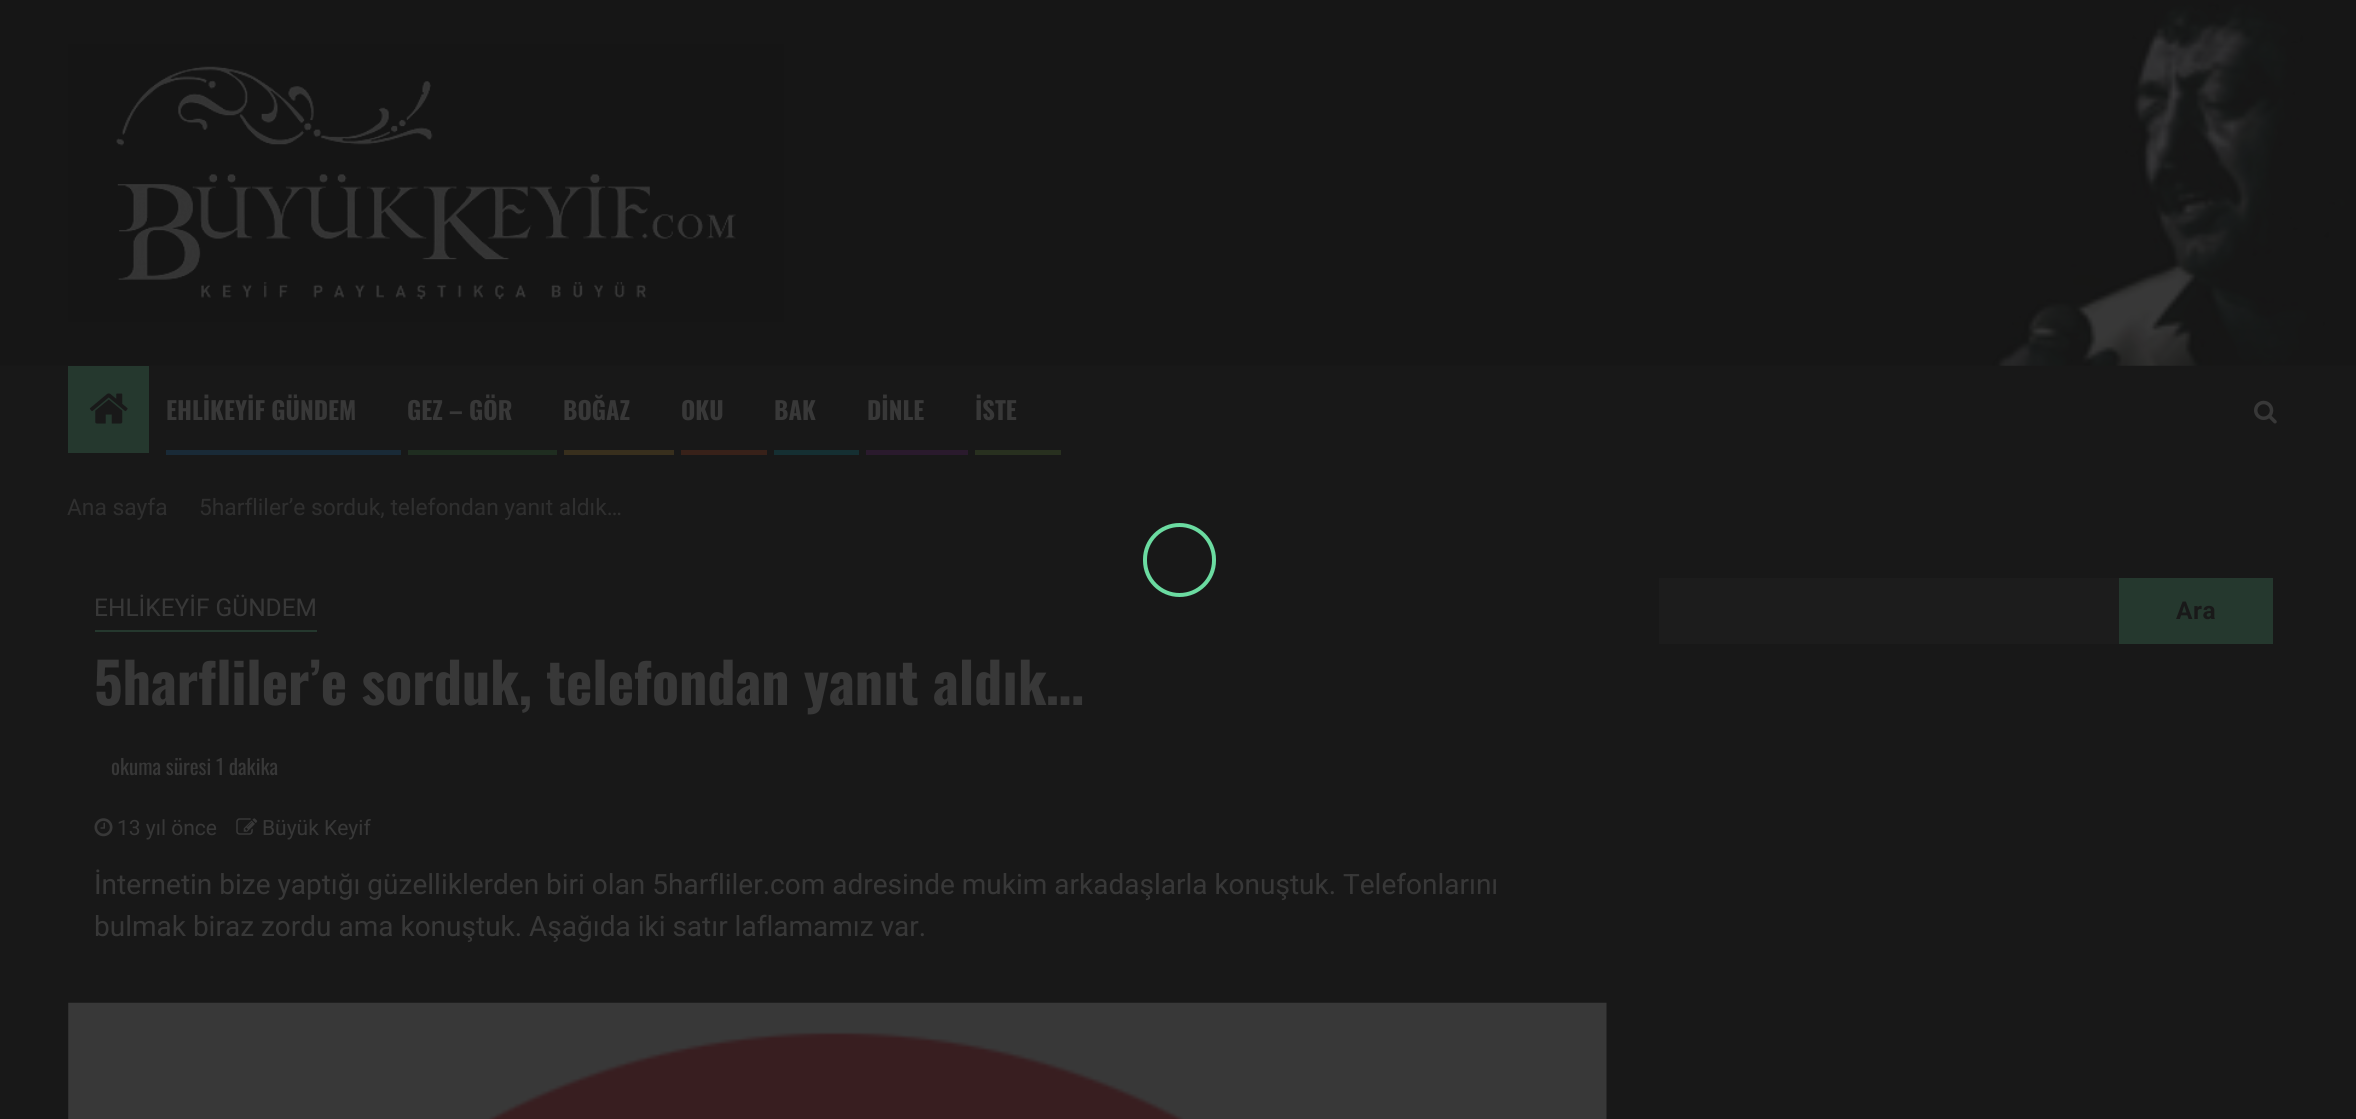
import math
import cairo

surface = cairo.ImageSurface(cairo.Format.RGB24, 2356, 1119)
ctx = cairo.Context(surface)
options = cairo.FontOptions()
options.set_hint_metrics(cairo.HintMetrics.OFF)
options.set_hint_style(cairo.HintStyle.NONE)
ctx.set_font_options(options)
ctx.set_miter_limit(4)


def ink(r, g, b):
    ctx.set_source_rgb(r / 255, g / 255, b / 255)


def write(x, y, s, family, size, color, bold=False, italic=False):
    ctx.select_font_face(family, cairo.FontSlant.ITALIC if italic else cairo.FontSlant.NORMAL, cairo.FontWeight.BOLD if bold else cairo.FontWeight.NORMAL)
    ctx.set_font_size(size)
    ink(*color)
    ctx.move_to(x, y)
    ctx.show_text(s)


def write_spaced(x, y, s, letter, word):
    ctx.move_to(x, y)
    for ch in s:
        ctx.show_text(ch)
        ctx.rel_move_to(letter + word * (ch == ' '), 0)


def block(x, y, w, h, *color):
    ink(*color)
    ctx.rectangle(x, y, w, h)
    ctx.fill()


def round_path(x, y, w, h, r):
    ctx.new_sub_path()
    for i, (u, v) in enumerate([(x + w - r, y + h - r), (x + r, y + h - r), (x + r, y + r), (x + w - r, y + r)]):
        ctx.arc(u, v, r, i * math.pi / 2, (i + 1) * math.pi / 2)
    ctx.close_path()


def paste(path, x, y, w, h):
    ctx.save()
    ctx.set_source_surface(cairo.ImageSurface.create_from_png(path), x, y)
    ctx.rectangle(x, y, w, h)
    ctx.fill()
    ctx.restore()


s1 = dict(family="Oswald", size=24.5, color=(56, 56, 56), bold=True)
s2 = dict(family="Roboto", size=22.75, color=(47, 47, 47))
s3 = dict(family="Roboto", size=24.5, color=(56, 56, 56))
s4 = dict(family="Oswald", size=56, color=(56, 56, 56), bold=True)
s5 = dict(family="Oswald", size=21, color=(56, 56, 56))
s6 = dict(family="Roboto", size=21, color=(56, 56, 56))
s7 = dict(family="Roboto", size=28, color=(56, 56, 56))

ink(24, 24, 24)
ctx.paint()
paste("pic1.png", 0, 0, 2356, 366)
paste("pic2.png", 68, 44, 716, 278)
block(68, 366, 81, 87, 37, 56, 46)
paste("pic3.png", 89, 393, 39, 31)
write(166, 420, "EHLİKEYİF GÜNDEM", **s1)
block(166, 450, 235, 5, 25, 42, 55)
write(407, 420, "GEZ – GÖR", **s1)
block(408, 450, 149, 5, 31, 45, 32)
write(563, 420, "BOĞAZ", **s1)
block(564, 450, 110, 5, 56, 47, 29)
write(681, 420, "OKU", **s1)
block(681, 450, 86, 5, 56, 33, 25)
write(774, 420, "BAK", **s1)
block(774, 450, 85, 5, 21, 47, 50)
write(867, 420, "DİNLE", **s1)
block(866, 450, 102, 5, 42, 26, 45)
write(975, 420, "İSTE", **s1)
block(975, 450, 86, 5, 40, 48, 31)
paste("pic4.png", 2254, 400, 23, 24)
write(67, 515, "Ana sayfa", **s2)
write(199, 515, "5harfliler’e sorduk, telefondan yanıt aldık…", **s2)
block(95, 630, 222, 2, 37, 56, 46)
write(94, 616, "EHLİKEYİF GÜNDEM", **s3)
write(94, 705, "5harfliler’e sorduk, telefondan yanıt aldık…", **s4)
write(111, 775, "okuma süresi 1 dakika", **s5)
paste("pic5.png", 94, 818, 19, 19)
write(117, 835, "13 yıl önce", **s6)
paste("pic6.png", 236, 818, 22, 17)
write(262, 835, "Büyük Keyif", **s6)
write(94, 894, "İnternetin bize yaptığı güzelliklerden biri olan 5harfliler.com adresinde mukim arkadaşlarla konuştuk. Telefonlarını", **s7)
write(94, 936, "bulmak biraz zordu ama konuştuk. Aşağıda iki satır laflamamız var.", **s7)
paste("pic7.png", 68, 1002, 1539, 117)
block(1659, 578, 460, 66, 28, 28, 28)
block(2119, 578, 154, 66, 37, 56, 46)
ctx.select_font_face("Roboto", cairo.FontSlant.NORMAL, cairo.FontWeight.BOLD)
ctx.set_font_size(24.5)
ink(25, 25, 25)
write_spaced(2176, 619, "Ara", 0.5, 0)
round_path(1145, 525, 69, 70, 34.5)
ink(107, 219, 161)
ctx.set_line_width(4)
ctx.stroke()
surface.write_to_png("screenshot.png")
